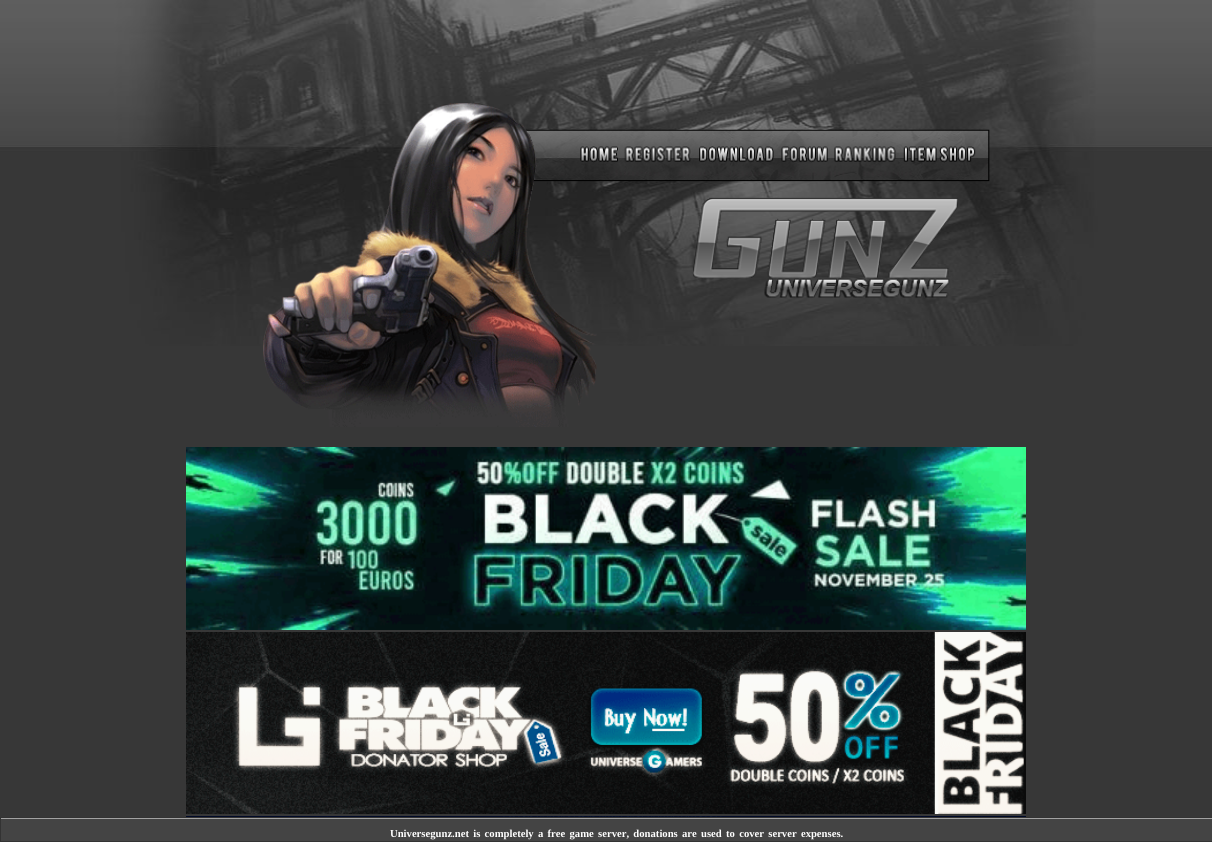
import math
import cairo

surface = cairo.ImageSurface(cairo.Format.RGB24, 1212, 842)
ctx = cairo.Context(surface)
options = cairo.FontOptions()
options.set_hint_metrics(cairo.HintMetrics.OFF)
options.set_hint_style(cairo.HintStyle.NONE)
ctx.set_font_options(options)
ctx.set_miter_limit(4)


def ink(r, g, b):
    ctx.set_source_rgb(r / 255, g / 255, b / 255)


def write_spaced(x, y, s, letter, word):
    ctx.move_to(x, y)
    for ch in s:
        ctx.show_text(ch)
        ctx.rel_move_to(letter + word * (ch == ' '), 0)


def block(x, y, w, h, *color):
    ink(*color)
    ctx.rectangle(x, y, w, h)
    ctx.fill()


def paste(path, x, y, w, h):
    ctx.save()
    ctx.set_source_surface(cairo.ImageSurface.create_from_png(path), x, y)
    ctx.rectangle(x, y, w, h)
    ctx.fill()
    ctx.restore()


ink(55, 55, 55)
ctx.paint()
paste("pic1.png", 0, 0, 1212, 346)
paste("pic2.png", 525, 129, 465, 169)
paste("pic3.png", 263, 103, 334, 324)
paste("pic4.png", 580, 146, 38, 17)
paste("pic5.png", 624, 146, 67, 17)
paste("pic6.png", 699, 146, 75, 17)
paste("pic7.png", 781, 146, 47, 17)
paste("pic8.png", 834, 146, 62, 16)
paste("pic9.png", 903, 146, 73, 17)
paste("pic10.png", 186, 447, 840, 183)
paste("pic11.png", 186, 632, 840, 182)
paste("pic12.png", 186, 816, 840, 1)
block(1, 819, 1211, 22, 68, 68, 68)
block(1, 818, 1211, 1, 162, 162, 162)
ctx.rectangle(0.5, 817.5, 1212, 24)
ink(51, 51, 51)
ctx.set_line_width(1)
ctx.stroke()
ctx.select_font_face("Liberation Serif", cairo.FontSlant.NORMAL, cairo.FontWeight.BOLD)
ctx.set_font_size(10.65)
ink(255, 255, 255)
write_spaced(390, 837, "Universegunz.net is completely a free game server, donations are used to cover server expenses.", 0, 1.6)
surface.write_to_png("screenshot.png")
